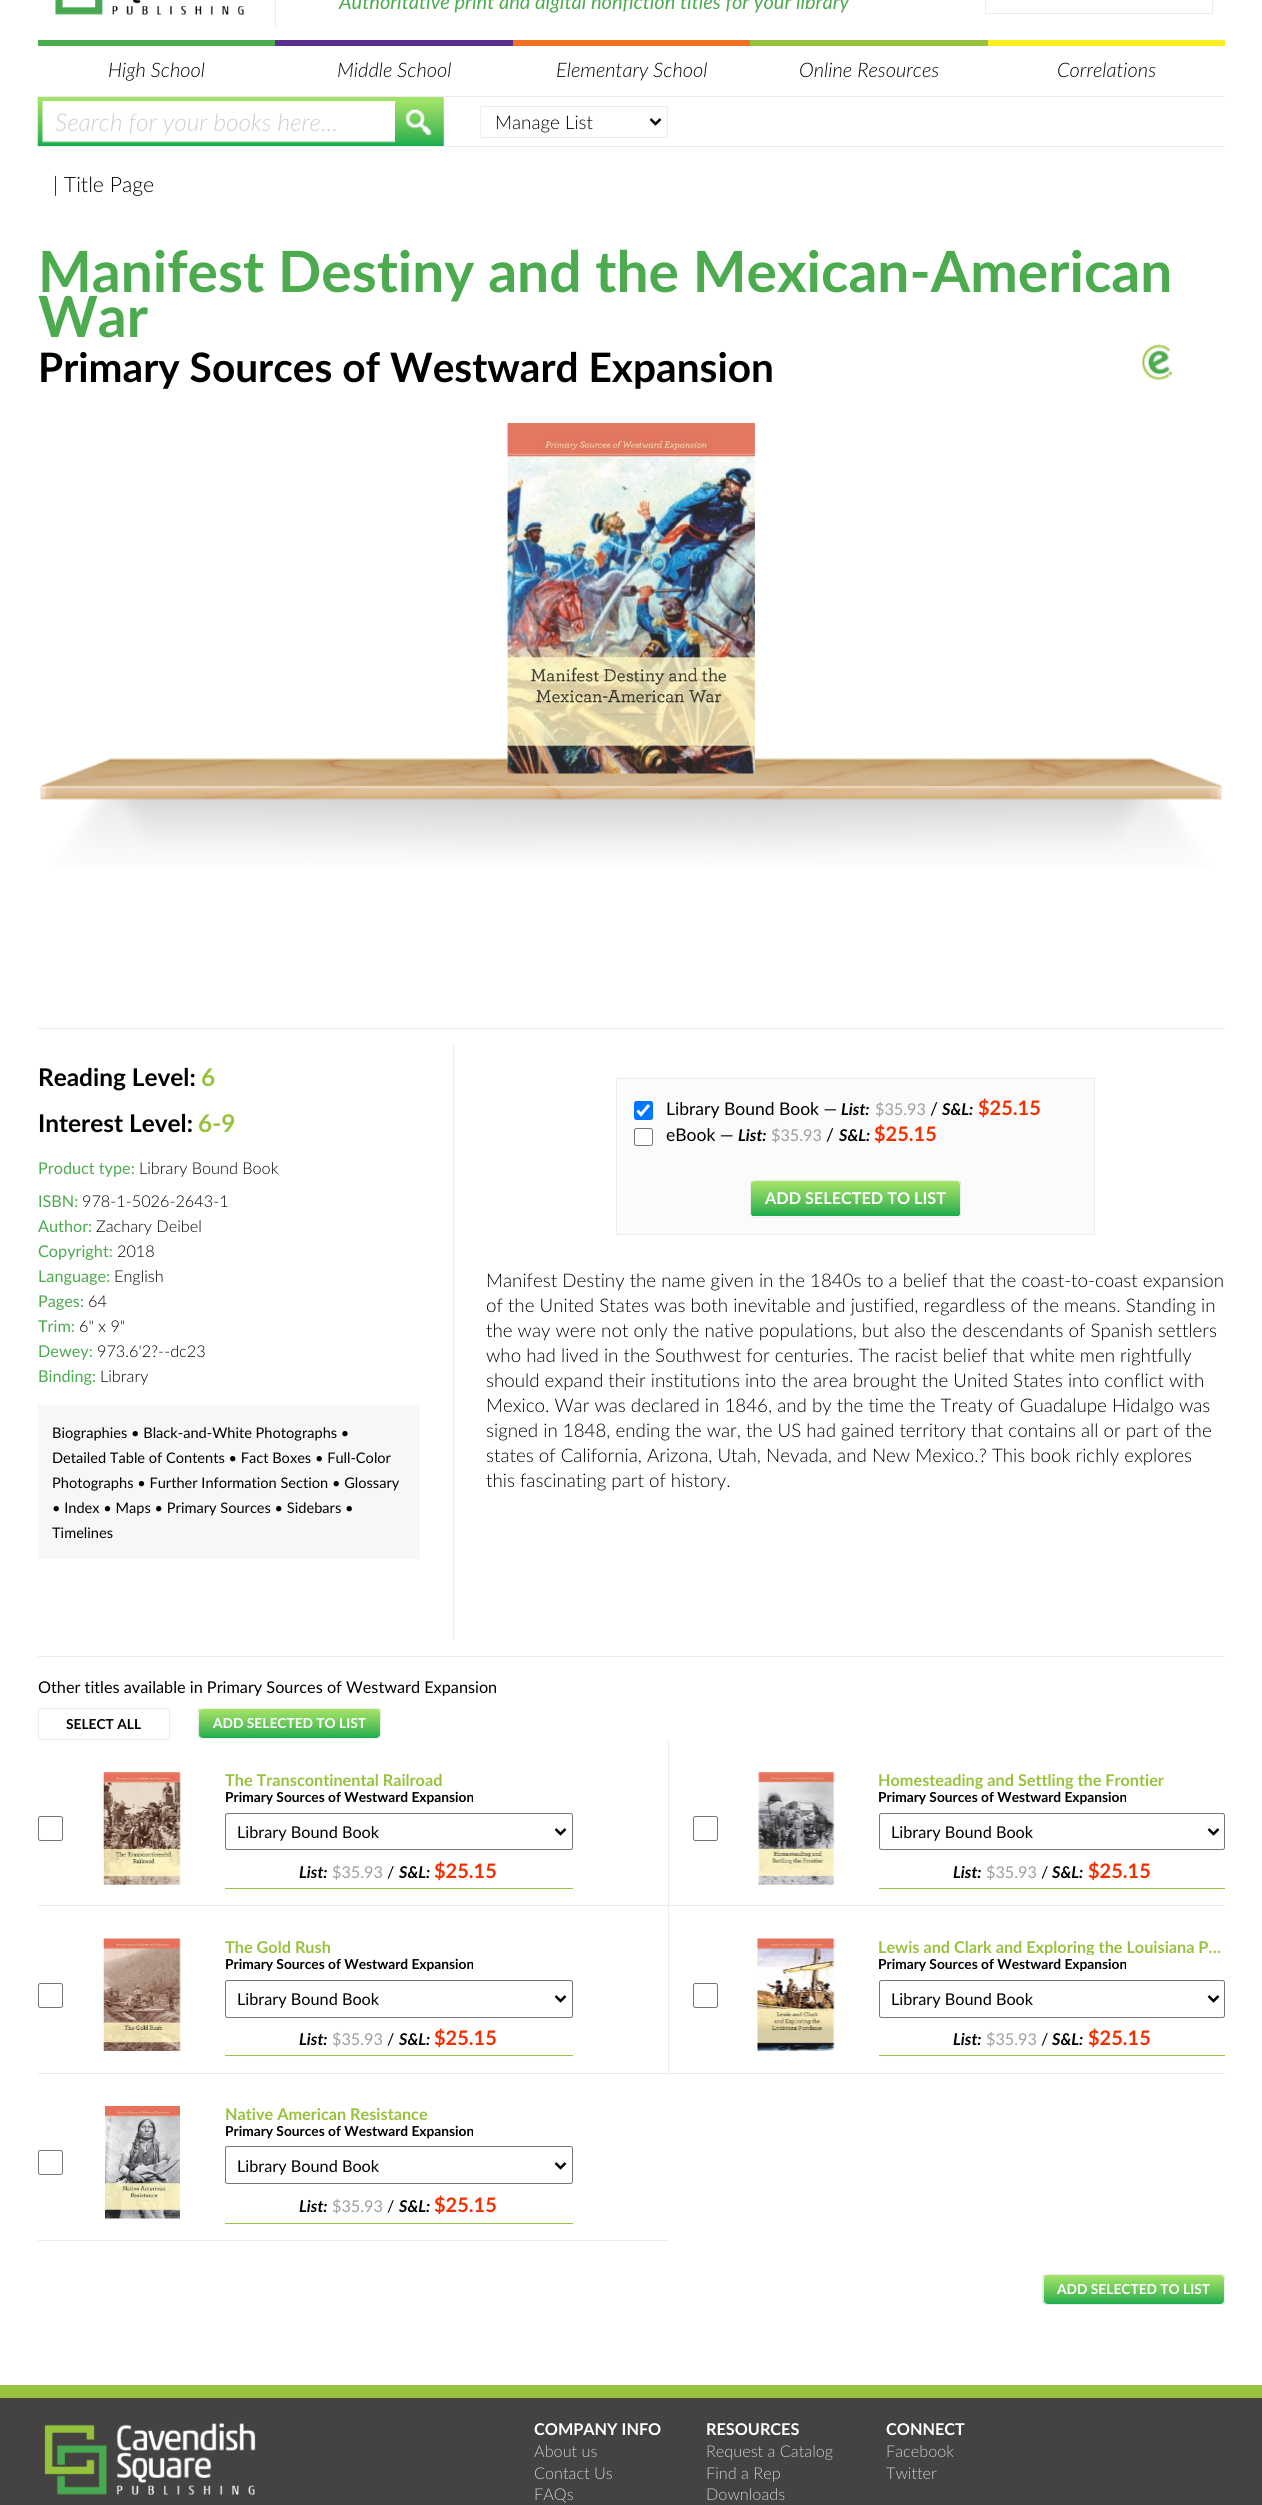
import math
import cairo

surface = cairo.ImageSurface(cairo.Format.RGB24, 1262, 2505)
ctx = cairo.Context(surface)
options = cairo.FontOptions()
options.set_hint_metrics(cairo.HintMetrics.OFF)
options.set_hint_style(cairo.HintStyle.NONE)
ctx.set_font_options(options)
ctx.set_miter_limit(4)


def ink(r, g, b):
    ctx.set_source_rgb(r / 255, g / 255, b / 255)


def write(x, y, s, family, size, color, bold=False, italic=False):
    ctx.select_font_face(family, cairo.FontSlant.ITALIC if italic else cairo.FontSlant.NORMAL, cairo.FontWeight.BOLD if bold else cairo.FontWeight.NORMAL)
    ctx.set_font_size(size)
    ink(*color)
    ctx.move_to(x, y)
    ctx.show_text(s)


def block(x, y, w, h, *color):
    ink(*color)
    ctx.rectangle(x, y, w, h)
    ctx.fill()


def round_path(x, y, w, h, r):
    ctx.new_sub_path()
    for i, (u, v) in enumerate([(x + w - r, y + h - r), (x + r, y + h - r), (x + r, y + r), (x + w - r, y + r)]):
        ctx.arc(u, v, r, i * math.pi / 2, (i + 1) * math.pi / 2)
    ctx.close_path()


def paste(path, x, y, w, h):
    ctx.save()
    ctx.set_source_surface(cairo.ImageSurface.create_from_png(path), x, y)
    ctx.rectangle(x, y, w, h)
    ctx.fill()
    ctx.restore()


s1 = dict(family="Lato", size=20, color=(76, 170, 79), italic=True)
s2 = dict(family="Lato Light", size=20, color=(0, 0, 0), italic=True)
s3 = dict(family="Lato Light", size=24.4, color=(206, 206, 206), italic=True)
s4 = dict(family="Lato Light", size=18.75, color=(0, 0, 0))
s5 = dict(family="Lato Light", size=21.25, color=(0, 0, 0))
s6 = dict(family="Lato", size=56.9, color=(76, 170, 79), bold=True)
s7 = dict(family="Lato", size=40.6, color=(0, 0, 0), bold=True)
s8 = dict(family="Lato", size=24.4, color=(0, 0, 0), bold=True)
s9 = dict(family="Lato", size=24.4, color=(152, 194, 61), bold=True)
s10 = dict(family="Lato", size=16.25, color=(76, 170, 79))
s11 = dict(family="Lato Light", size=16.25, color=(0, 0, 0))
s12 = dict(family="Lato", size=14.6, color=(0, 0, 0))
s13 = dict(family="Lato", size=17.5, color=(0, 0, 0))
s14 = dict(family="Lato", size=16.25, color=(0, 0, 0), bold=True, italic=True)
s15 = dict(family="Lato", size=16.25, color=(158, 158, 158))
s16 = dict(family="Lato", size=20, color=(245, 46, 0), bold=True)
s17 = dict(family="Lato", size=16.25, color=(255, 255, 255), bold=True)
s18 = dict(family="Lato", size=16.25, color=(0, 0, 0))
s19 = dict(family="Lato", size=13.75, color=(0, 0, 0), bold=True)
s20 = dict(family="Lato", size=13.75, color=(255, 255, 255), bold=True)
s21 = dict(family="Lato", size=16.25, color=(152, 194, 61), bold=True)
s22 = dict(family="Lato Light", size=16.25, color=(206, 206, 206))

ink(255, 255, 255)
ctx.paint()
block(275, 0, 1, 28, 236, 236, 236)
paste("pic1.png", 55, 0, 189, 15)
write(339, 9, "Authoritative print and digital nonfiction titles for your library", **s1)
ctx.rectangle(985.5, -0.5, 227, 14)
ink(236, 236, 236)
ctx.set_line_width(1)
ctx.stroke()
block(38, 40, 237, 6, 76, 170, 79)
write(108, 77, "High School", **s2)
block(275, 40, 238, 6, 92, 46, 143)
write(337, 77, "Middle School", **s2)
block(513, 40, 237, 6, 242, 112, 33)
write(556, 77, "Elementary School", **s2)
block(750, 40, 238, 6, 152, 194, 61)
write(799, 77, "Online Resources", **s2)
block(988, 40, 237, 6, 252, 237, 33)
write(1057, 77, "Correlations", **s2)
paste("pic3.png", 37, 96, 407, 50)
block(38, 96, 1187, 1, 236, 236, 236)
paste("pic2.png", 395, 100, 45, 46)
write(55, 131, "Search for your books here...", **s3)
paste("pic4.png", 406, 109, 26, 26)
ctx.rectangle(480.5, 106.5, 187, 31)
ink(236, 236, 236)
ctx.stroke()
ctx.new_path()
ctx.move_to(650.5, 119)
ctx.line_to(655.5, 124)
ctx.line_to(660.5, 119)
ink(0, 0, 0)
ctx.set_line_width(2.5)
ctx.stroke()
write(495, 129, "Manage List", **s4)
block(38, 146, 1187, 1, 236, 236, 236)
write(53, 192, "| Title Page", **s5)
write(38, 292, "Manifest Destiny and the Mexican-American", **s6)
write(38, 337, "War", **s6)
write(38, 382, "Primary Sources of Westward Expansion", **s7)
paste("pic5.png", 1142, 344, 31, 36)
block(38, 1028, 1187, 1, 236, 236, 236)
paste("pic6.png", 40, 758, 1183, 109)
paste("pic7.png", 507, 423, 248, 351)
block(453, 1045, 1, 595, 236, 236, 236)
write(38, 1086, "Reading Level:", **s8)
write(201, 1086, "6", **s9)
write(38, 1132, "Interest Level:", **s8)
write(198, 1132, "6-9", **s9)
write(38, 1174, "Product type:", **s10)
write(139, 1174, "Library Bound Book", **s11)
write(38, 1207, "ISBN:", **s10)
write(82, 1207, "978-1-5026-2643-1", **s11)
write(38, 1232, "Author:", **s10)
write(96, 1232, "Zachary Deibel", **s11)
write(38, 1257, "Copyright:", **s10)
write(117, 1257, "2018", **s11)
write(38, 1282, "Language:", **s10)
write(114, 1282, "English", **s11)
write(38, 1307, "Pages:", **s10)
write(88, 1307, "64", **s11)
write(38, 1332, "Trim:", **s10)
write(79, 1332, "6\" x 9\"", **s11)
write(38, 1357, "Dewey:", **s10)
write(97, 1357, "973.6'2?--dc23", **s11)
write(38, 1382, "Binding:", **s10)
write(100, 1382, "Library", **s11)
block(38, 1405, 382, 154, 247, 247, 247)
write(52, 1438, "Biographies • Black-and-White Photographs •", **s12)
write(52, 1463, "Detailed Table of Contents • Fact Boxes • Full-Color", **s12)
write(52, 1488, "Photographs • Further Information Section • Glossary", **s12)
write(52, 1513, "• Index • Maps • Primary Sources • Sidebars •", **s12)
write(52, 1538, "Timelines", **s12)
ink(251, 251, 251)
ctx.rectangle(616.5, 1078.5, 478, 156)
ctx.fill_preserve()
ink(236, 236, 236)
ctx.set_line_width(1)
ctx.stroke()
ink(0, 117, 255)
round_path(634, 1101, 19, 19, 2.5)
ctx.fill()
ctx.new_path()
ctx.move_to(637.5, 1110.5)
ctx.line_to(641, 1114.5)
ctx.line_to(649, 1105)
ink(255, 255, 255)
ctx.set_line_width(3)
ctx.stroke()
write(666, 1115, "Library Bound Book —", **s13)
write(841, 1115, "List:", **s14)
write(875, 1115, "$35.93", **s15)
write(930, 1115, "/", **s13)
write(942, 1115, "S&L:", **s14)
write(978, 1115, "$25.15", **s16)
ink(255, 255, 255)
round_path(634.5, 1128.5, 18, 17, 2)
ctx.fill_preserve()
ink(118, 118, 118)
ctx.set_line_width(1)
ctx.stroke()
write(666, 1141, "eBook —", **s13)
write(738, 1141, "List:", **s14)
write(771, 1141, "$35.93", **s15)
write(826, 1141, "/", **s13)
write(839, 1141, "S&L:", **s14)
write(874, 1141, "$25.15", **s16)
paste("pic8.png", 750, 1181, 212, 35)
round_path(750.5, 1180.5, 210, 37, 4.5)
ink(236, 236, 236)
ctx.stroke()
write(765, 1204, "ADD SELECTED TO LIST", **s17)
write(486, 1287, "Manifest Destiny the name given in the 1840s to a belief that the coast-to-coast expansion", **s4)
write(486, 1312, "of the United States was both inevitable and justified, regardless of the means. Standing in", **s4)
write(486, 1337, "the way were not only the native populations, but also the descendants of Spanish settlers", **s4)
write(486, 1362, "who had lived in the Southwest for centuries. The racist belief that white men rightfully", **s4)
write(486, 1387, "should expand their institutions into the area brought the United States into conflict with", **s4)
write(486, 1412, "Mexico. War was declared in 1846, and by the time the Treaty of Guadalupe Hidalgo was", **s4)
write(486, 1437, "signed in 1848, ending the war, the US had gained territory that contains all or part of the", **s4)
write(486, 1462, "states of California, Arizona, Utah, Nevada, and New Mexico.? This book richly explores", **s4)
write(486, 1487, "this fascinating part of history.", **s4)
block(38, 1656, 1187, 1, 236, 236, 236)
write(38, 1693, "Other titles available in Primary Sources of Westward Expansion", **s18)
ctx.rectangle(38.5, 1708.5, 131, 31)
ink(236, 236, 236)
ctx.stroke()
write(66, 1729, "SELECT ALL", **s19)
paste("pic9.png", 197, 1708, 185, 31)
round_path(198.5, 1708.5, 182, 30, 4.5)
ink(236, 236, 236)
ctx.stroke()
write(213, 1728, "ADD SELECTED TO LIST", **s20)
block(38, 1905, 1187, 1, 236, 236, 236)
round_path(38.5, 1816.5, 24, 24, 2)
ink(118, 118, 118)
ctx.stroke()
paste("pic10.png", 103, 1772, 78, 113)
write(225, 1786, "The Transcontinental Railroad", **s21)
write(225, 1802, "Primary Sources of Westward Expansion", **s19)
round_path(225.5, 1813.5, 347, 36, 2)
ink(118, 118, 118)
ctx.stroke()
ctx.new_path()
ctx.move_to(555.5, 1829)
ctx.line_to(560.5, 1834)
ctx.line_to(565.5, 1829)
ink(0, 0, 0)
ctx.set_line_width(2.5)
ctx.stroke()
write(237, 1838, "Library Bound Book", **s18)
block(225, 1888, 348, 1, 152, 194, 61)
write(299, 1878, "List:", **s14)
write(332, 1878, "$35.93", **s15)
write(387, 1878, "/", **s18)
write(399, 1878, "S&L:", **s14)
write(434, 1878, "$25.15", **s16)
block(38, 2073, 1187, 1, 236, 236, 236)
block(668, 1740, 1, 334, 236, 236, 236)
round_path(693.5, 1816.5, 24, 24, 2)
ink(118, 118, 118)
ctx.set_line_width(1)
ctx.stroke()
paste("pic11.png", 758, 1772, 77, 113)
write(878, 1786, "Homesteading and Settling the Frontier", **s21)
write(878, 1802, "Primary Sources of Westward Expansion", **s19)
round_path(879.5, 1813.5, 345, 36, 2)
ink(118, 118, 118)
ctx.stroke()
ctx.new_path()
ctx.move_to(1208.5, 1829)
ctx.line_to(1213.5, 1834)
ctx.line_to(1218.5, 1829)
ink(0, 0, 0)
ctx.set_line_width(2.5)
ctx.stroke()
write(891, 1838, "Library Bound Book", **s18)
block(879, 1888, 346, 1, 152, 194, 61)
write(953, 1878, "List:", **s14)
write(986, 1878, "$35.93", **s15)
write(1041, 1878, "/", **s18)
write(1052, 1878, "S&L:", **s14)
write(1088, 1878, "$25.15", **s16)
round_path(38.5, 1983.5, 24, 24, 2)
ink(118, 118, 118)
ctx.set_line_width(1)
ctx.stroke()
paste("pic12.png", 103, 1938, 78, 113)
write(225, 1953, "The Gold Rush", **s21)
ctx.save()
ctx.rectangle(225, 1955, 284, 16)
ctx.clip()
write(225, 1969, "Primary Sources of Westward Expansion", **s19)
ctx.restore()
round_path(225.5, 1980.5, 347, 37, 2)
ink(118, 118, 118)
ctx.stroke()
ctx.new_path()
ctx.move_to(555.5, 1996)
ctx.line_to(560.5, 2001)
ctx.line_to(565.5, 1996)
ink(0, 0, 0)
ctx.set_line_width(2.5)
ctx.stroke()
write(237, 2005, "Library Bound Book", **s18)
block(225, 2055, 348, 1, 152, 194, 61)
write(299, 2045, "List:", **s14)
write(332, 2045, "$35.93", **s15)
write(387, 2045, "/", **s18)
write(399, 2045, "S&L:", **s14)
write(434, 2045, "$25.15", **s16)
round_path(693.5, 1983.5, 24, 24, 2)
ink(118, 118, 118)
ctx.set_line_width(1)
ctx.stroke()
paste("pic13.png", 757, 1938, 78, 113)
ctx.save()
ctx.rectangle(879, 1939, 346, 16)
ctx.clip()
write(878, 1953, "Lewis and Clark and Exploring the Louisiana P…", **s21)
ctx.restore()
ctx.save()
ctx.rectangle(879, 1955, 284, 16)
ctx.clip()
write(878, 1969, "Primary Sources of Westward Expansion", **s19)
ctx.restore()
round_path(879.5, 1980.5, 345, 37, 2)
ctx.stroke()
ctx.new_path()
ctx.move_to(1208.5, 1996)
ctx.line_to(1213.5, 2001)
ctx.line_to(1218.5, 1996)
ink(0, 0, 0)
ctx.set_line_width(2.5)
ctx.stroke()
write(891, 2005, "Library Bound Book", **s18)
block(879, 2055, 346, 1, 152, 194, 61)
write(953, 2045, "List:", **s14)
write(986, 2045, "$35.93", **s15)
write(1041, 2045, "/", **s18)
write(1052, 2045, "S&L:", **s14)
write(1088, 2045, "$25.15", **s16)
block(38, 2240, 630, 1, 236, 236, 236)
round_path(38.5, 2150.5, 24, 24, 2)
ink(118, 118, 118)
ctx.set_line_width(1)
ctx.stroke()
paste("pic14.png", 105, 2106, 75, 113)
write(225, 2120, "Native American Resistance", **s21)
write(225, 2136, "Primary Sources of Westward Expansion", **s19)
round_path(225.5, 2146.5, 347, 37, 2)
ink(118, 118, 118)
ctx.stroke()
ctx.new_path()
ctx.move_to(555.5, 2163)
ctx.line_to(560.5, 2168)
ctx.line_to(565.5, 2163)
ink(0, 0, 0)
ctx.set_line_width(2.5)
ctx.stroke()
write(237, 2172, "Library Bound Book", **s18)
block(225, 2223, 348, 1, 152, 194, 61)
write(299, 2212, "List:", **s14)
write(332, 2212, "$35.93", **s15)
write(387, 2212, "/", **s18)
write(399, 2212, "S&L:", **s14)
write(434, 2212, "$25.15", **s16)
paste("pic15.png", 1042, 2274, 183, 31)
round_path(1043.5, 2274.5, 181, 30, 4.5)
ink(236, 236, 236)
ctx.set_line_width(1)
ctx.stroke()
write(1057, 2294, "ADD SELECTED TO LIST", **s20)
block(0, 2398, 1262, 107, 69, 66, 66)
block(0, 2385, 1262, 13, 152, 194, 61)
paste("pic16.png", 44, 2423, 212, 72)
write(534, 2435, "COMPANY INFO", **s17)
write(534, 2457, "About us", **s22)
write(534, 2479, "Contact Us", **s22)
write(534, 2500, "FAQs", **s22)
write(706, 2435, "RESOURCES", **s17)
write(706, 2457, "Request a Catalog", **s22)
write(706, 2479, "Find a Rep", **s22)
write(706, 2500, "Downloads", **s22)
write(886, 2435, "CONNECT", **s17)
write(886, 2457, "Facebook", **s22)
write(886, 2479, "Twitter", **s22)
surface.write_to_png("screenshot.png")
